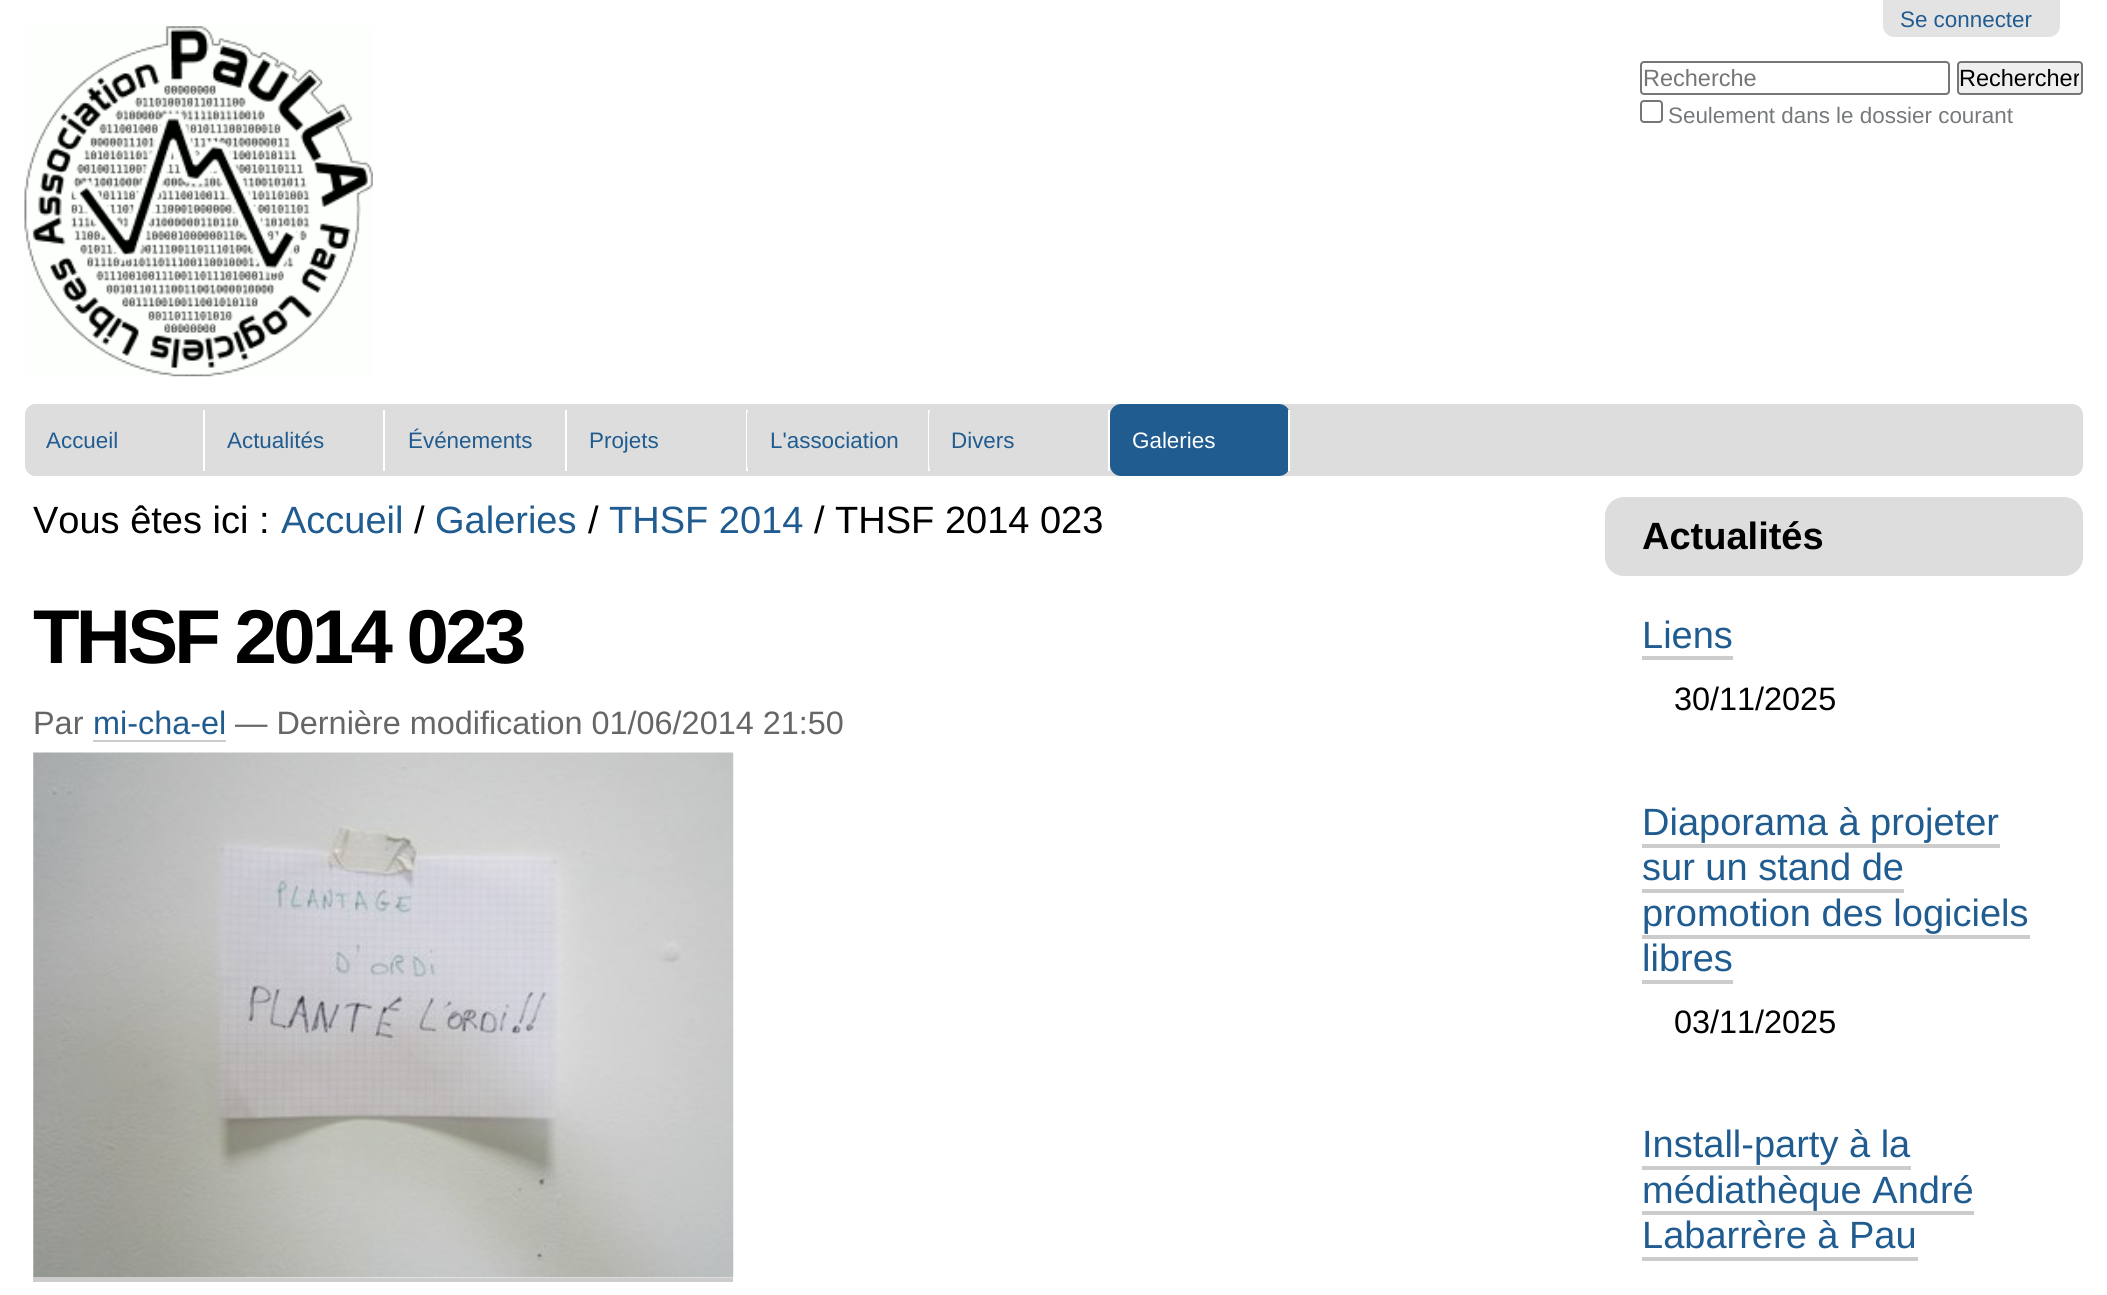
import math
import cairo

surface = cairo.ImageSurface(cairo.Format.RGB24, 2107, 1295)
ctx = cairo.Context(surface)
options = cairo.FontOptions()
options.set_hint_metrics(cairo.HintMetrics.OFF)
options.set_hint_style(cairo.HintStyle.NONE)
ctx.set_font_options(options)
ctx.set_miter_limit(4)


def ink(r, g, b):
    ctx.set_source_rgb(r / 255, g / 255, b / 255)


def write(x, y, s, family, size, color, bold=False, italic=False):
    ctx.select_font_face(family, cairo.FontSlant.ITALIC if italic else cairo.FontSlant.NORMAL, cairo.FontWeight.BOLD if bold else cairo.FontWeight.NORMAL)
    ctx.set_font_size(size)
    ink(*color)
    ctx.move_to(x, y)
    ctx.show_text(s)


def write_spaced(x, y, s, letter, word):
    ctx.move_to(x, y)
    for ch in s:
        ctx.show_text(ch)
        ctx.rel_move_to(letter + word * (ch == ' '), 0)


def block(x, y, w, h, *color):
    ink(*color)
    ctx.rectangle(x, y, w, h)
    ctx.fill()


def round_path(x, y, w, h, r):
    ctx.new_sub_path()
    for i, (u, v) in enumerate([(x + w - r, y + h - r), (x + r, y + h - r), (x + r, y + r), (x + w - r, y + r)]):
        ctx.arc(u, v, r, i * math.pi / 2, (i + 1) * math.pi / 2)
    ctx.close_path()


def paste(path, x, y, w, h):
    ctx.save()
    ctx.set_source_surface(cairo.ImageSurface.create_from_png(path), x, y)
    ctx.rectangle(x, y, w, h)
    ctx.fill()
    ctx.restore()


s1 = dict(family="Liberation Sans", size=22.4, color=(32, 92, 144))
s2 = dict(family="Liberation Sans", size=23.5, color=(117, 117, 117))
s3 = dict(family="Liberation Sans", size=23.5, color=(0, 0, 0))
s4 = dict(family="Liberation Sans", size=22.4, color=(118, 121, 124))
s5 = dict(family="Liberation Sans", size=22.4, color=(255, 255, 255))
s6 = dict(family="Liberation Sans", size=38, color=(0, 0, 0))
s7 = dict(family="Liberation Sans", size=38, color=(32, 92, 144))
s8 = dict(family="Liberation Sans", size=32.4, color=(102, 102, 102))
s9 = dict(family="Liberation Sans", size=32.4, color=(32, 92, 144))
s10 = dict(family="Liberation Sans", size=38, color=(0, 0, 0), bold=True)
s11 = dict(family="Liberation Sans", size=32.4, color=(0, 0, 0))

ink(255, 255, 255)
ctx.paint()
ink(227, 227, 227)
ctx.new_path()
ctx.move_to(1883, 0)
ctx.line_to(2060, 0)
ctx.line_to(2060, 26)
ctx.curve_to(2060, 32, 2055, 37, 2049, 37)
ctx.line_to(1894, 37)
ctx.curve_to(1888, 37, 1883, 32, 1883, 26)
ctx.close_path()
ctx.fill()
write(1900, 27, "Se connecter", **s1)
paste("pic1.png", 24, 26, 349, 351)
round_path(1641, 62, 308, 32, 3)
ink(118, 118, 118)
ctx.stroke()
write(1643, 86, "Recherche", **s2)
ink(239, 239, 239)
round_path(1958, 62, 124, 32, 3)
ctx.fill_preserve()
ink(118, 118, 118)
ctx.stroke()
ctx.save()
ctx.rectangle(1960, 65, 119, 26)
ctx.clip()
write(1959, 86, "Rechercher", **s3)
ctx.restore()
round_path(1641, 101, 21, 21, 3)
ctx.stroke()
write(1668, 123, "Seulement dans le dossier courant", **s4)
ink(221, 221, 221)
round_path(25, 404, 2058, 72, 11)
ctx.fill()
round_path(25, 404, 180, 72, 11)
ctx.fill()
block(203, 410, 2, 61, 255, 255, 255)
write(46, 448, "Accueil", **s1)
block(383, 410, 2, 61, 255, 255, 255)
write(227, 448, "Actualités", **s1)
block(565, 410, 2, 61, 255, 255, 255)
write(408, 448, "Événements", **s1)
block(746, 410, 2, 61, 255, 255, 255)
write(589, 448, "Projets", **s1)
ink(221, 221, 221)
round_path(747, 404, 182, 72, 11)
ctx.fill()
block(928, 410, 2, 61, 255, 255, 255)
write(770, 448, "L'association", **s1)
ink(221, 221, 221)
round_path(929, 404, 181, 72, 11)
ctx.fill()
block(1108, 410, 2, 61, 255, 255, 255)
write(951, 448, "Divers", **s1)
round_path(1110, 404, 180, 72, 11)
ctx.fill()
block(1288, 410, 2, 61, 255, 255, 255)
write(1132, 448, "Galeries", **s5)
write(33, 533, "Vous êtes ici :", **s6)
write(281, 533, "Accueil", **s7)
write(414, 533, "/", **s6)
write(435, 533, "Galeries", **s7)
write(588, 533, "/", **s6)
write(609, 533, "THSF 2014", **s7)
write(814, 533, "/ THSF 2014 023", **s6)
ctx.select_font_face("Liberation Sans", cairo.FontSlant.NORMAL, cairo.FontWeight.BOLD)
ctx.set_font_size(76.25)
write_spaced(33, 663, "THSF 2014 023", -3.75, 0)
write(33, 734, "Par", **s8)
write(93, 734, "mi-cha-el", **s9)
block(93, 740, 133, 2, 204, 204, 204)
write(235, 734, "— Dernière modification 01/06/2014 21:50", **s8)
paste("pic2.png", 33, 752, 701, 526)
block(33, 1278, 700, 4, 204, 204, 204)
ink(221, 221, 221)
round_path(1605, 497, 478, 79, 19)
ctx.fill()
write(1642, 549, "Actualités", **s10)
write(1642, 648, "Liens", **s7)
block(1642, 656, 91, 4, 204, 204, 204)
write(1674, 710, "30/11/2025", **s11)
write(1642, 835, "Diaporama à projeter", **s7)
write(1642, 880, "sur un stand de", **s7)
block(1642, 844, 358, 4, 204, 204, 204)
block(1642, 889, 262, 4, 204, 204, 204)
write(1642, 926, "promotion des logiciels", **s7)
write(1642, 971, "libres", **s7)
block(1642, 935, 388, 4, 204, 204, 204)
block(1642, 980, 91, 4, 204, 204, 204)
write(1674, 1033, "03/11/2025", **s11)
write(1642, 1157, "Install-party à la", **s7)
block(1642, 1166, 269, 4, 204, 204, 204)
write(1642, 1203, "médiathèque André", **s7)
block(1642, 1211, 332, 4, 204, 204, 204)
write(1642, 1248, "Labarrère à Pau", **s7)
block(1642, 1257, 276, 4, 204, 204, 204)
surface.write_to_png("screenshot.png")
